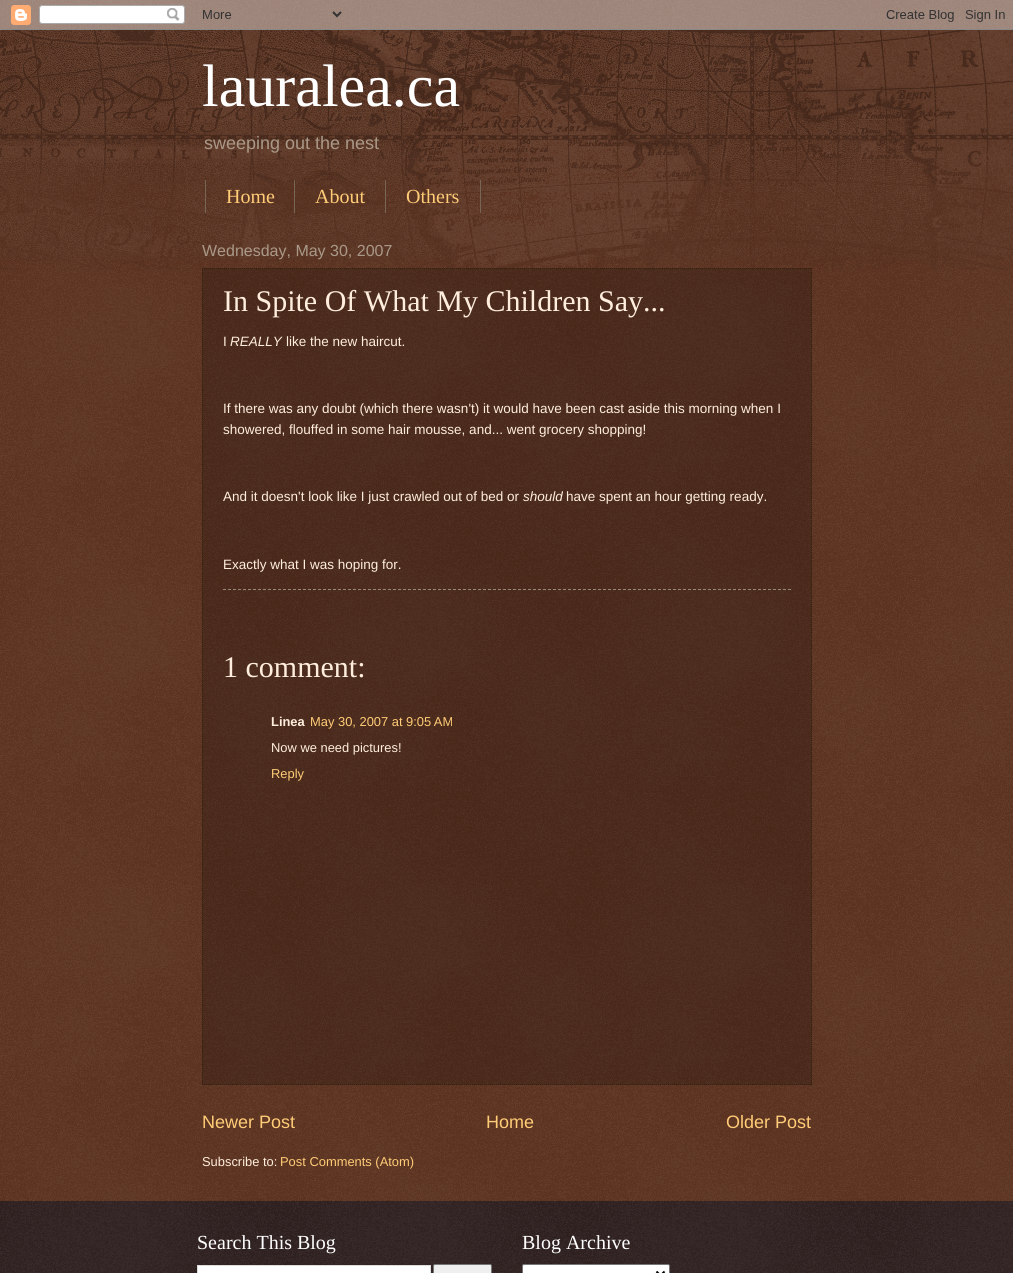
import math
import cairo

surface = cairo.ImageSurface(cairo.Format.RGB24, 1013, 1273)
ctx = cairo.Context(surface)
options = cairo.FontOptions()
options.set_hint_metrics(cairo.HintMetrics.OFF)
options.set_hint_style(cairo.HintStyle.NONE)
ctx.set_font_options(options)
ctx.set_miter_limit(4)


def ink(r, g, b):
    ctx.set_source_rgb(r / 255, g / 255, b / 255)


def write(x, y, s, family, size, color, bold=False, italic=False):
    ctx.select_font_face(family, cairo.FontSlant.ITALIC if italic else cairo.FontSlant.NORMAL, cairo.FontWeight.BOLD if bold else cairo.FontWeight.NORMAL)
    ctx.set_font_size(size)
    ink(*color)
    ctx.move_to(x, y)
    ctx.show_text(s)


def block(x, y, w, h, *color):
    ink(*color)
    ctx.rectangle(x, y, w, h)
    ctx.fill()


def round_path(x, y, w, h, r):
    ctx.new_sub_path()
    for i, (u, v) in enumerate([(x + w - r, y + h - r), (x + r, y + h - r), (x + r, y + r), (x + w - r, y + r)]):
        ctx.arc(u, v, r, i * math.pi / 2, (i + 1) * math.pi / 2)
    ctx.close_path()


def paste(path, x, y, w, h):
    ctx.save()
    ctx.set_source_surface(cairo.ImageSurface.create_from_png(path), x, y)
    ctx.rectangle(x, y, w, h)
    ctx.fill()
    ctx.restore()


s1 = dict(family="Liberation Serif", size=60, color=(255, 255, 255))
s2 = dict(family="Liberation Sans", size=18, color=(170, 153, 136))
s3 = dict(family="Liberation Serif", size=20, color=(255, 204, 119))
s4 = dict(family="Liberation Sans", size=16, color=(170, 153, 136))
s5 = dict(family="Liberation Serif", size=30, color=(255, 238, 221))
s6 = dict(family="Liberation Sans", size=13.5, color=(255, 238, 221))
s7 = dict(family="Liberation Sans", size=13.5, color=(255, 238, 221), italic=True)
s8 = dict(family="Liberation Sans", size=12.9, color=(255, 238, 221), bold=True)
s9 = dict(family="Liberation Sans", size=12.9, color=(255, 204, 119))
s10 = dict(family="Liberation Sans", size=12.9, color=(255, 238, 221))
s11 = dict(family="Liberation Sans", size=18, color=(255, 204, 119))
s12 = dict(family="Liberation Serif", size=20, color=(255, 255, 255))

ink(68, 21, 0)
ctx.paint()
paste("pic1.png", 0, 0, 1013, 1201)
paste("pic2.png", 0, 0, 1013, 30)
paste("pic3.png", 0, 30, 1013, 240)
write(202, 106, "lauralea.ca", **s1)
write(204, 149, "sweeping out the nest", **s2)
block(294, 180, 1, 33, 119, 102, 85)
block(205, 180, 1, 33, 119, 102, 85)
write(226, 203, "Home", **s3)
block(385, 180, 1, 33, 119, 102, 85)
write(315, 203, "About", **s3)
block(480, 180, 1, 33, 119, 102, 85)
write(406, 203, "Others", **s3)
write(202, 256, "Wednesday, May 30, 2007", **s4)
ctx.set_source_rgba(0, 0, 0, 0.2)
ctx.rectangle(202, 268, 610, 817)
ctx.fill()
ctx.new_path()
ctx.move_to(202, 268.5)
ctx.line_to(812, 268.5)
ink(51, 34, 17)
ctx.set_line_width(1)
ctx.set_dash([1, 1])
ctx.stroke()
ctx.new_path()
ctx.move_to(811.5, 268)
ctx.line_to(811.5, 1085)
ctx.stroke()
ctx.new_path()
ctx.move_to(202, 1084.5)
ctx.line_to(812, 1084.5)
ctx.stroke()
ctx.new_path()
ctx.move_to(202.5, 268)
ctx.line_to(202.5, 1085)
ctx.stroke()
write(223, 311, "In Spite Of What My Children Say...", **s5)
write(223, 346, "I", **s6)
write(230, 346, "REALLY", **s7)
write(286, 346, "like the new haircut.", **s6)
write(223, 413, "If there was any doubt (which there wasn't) it would have been cast aside this morning when I", **s6)
write(223, 434, "showered, flouffed in some hair mousse, and... went grocery shopping!", **s6)
write(223, 501, "And it doesn't look like I just crawled out of bed or", **s6)
write(523, 501, "should", **s7)
write(566, 501, "have spent an hour getting ready.", **s6)
write(223, 569, "Exactly what I was hoping for.", **s6)
ctx.new_path()
ctx.move_to(223, 589.5)
ctx.line_to(791, 589.5)
ink(153, 136, 119)
ctx.set_dash([3, 2])
ctx.stroke()
write(223, 677, "1 comment:", **s5)
write(271, 726, "Linea", **s8)
write(310, 726, "May 30, 2007 at 9:05 AM", **s9)
write(271, 752, "Now we need pictures!", **s10)
write(271, 778, "Reply", **s9)
write(202, 1128, "Newer Post", **s11)
write(486, 1128, "Home", **s11)
write(726, 1128, "Older Post", **s11)
write(202, 1166, "Subscribe to:", **s10)
write(280, 1166, "Post Comments (Atom)", **s9)
block(0, 1201, 1013, 72, 17, 0, 0)
paste("pic4.png", 0, 1201, 1013, 72)
write(197, 1249, "Search This Blog", **s12)
ctx.rectangle(197.5, 1265.5, 233, 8)
ctx.fill_preserve()
ink(221, 221, 221)
ctx.set_dash([])
ctx.stroke()
ink(239, 239, 239)
round_path(433.5, 1264.5, 58, 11, 1.5)
ctx.fill_preserve()
ink(118, 118, 118)
ctx.stroke()
write(522, 1249, "Blog Archive", **s12)
round_path(522.5, 1264.5, 147, 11, 1.5)
ctx.fill_preserve()
ink(118, 118, 118)
ctx.stroke()
ctx.new_path()
ctx.move_to(656.5, 1271.5)
ctx.line_to(660.5, 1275.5)
ctx.line_to(664.5, 1271.5)
ink(0, 0, 0)
ctx.set_line_width(2)
ctx.stroke()
surface.write_to_png("screenshot.png")
